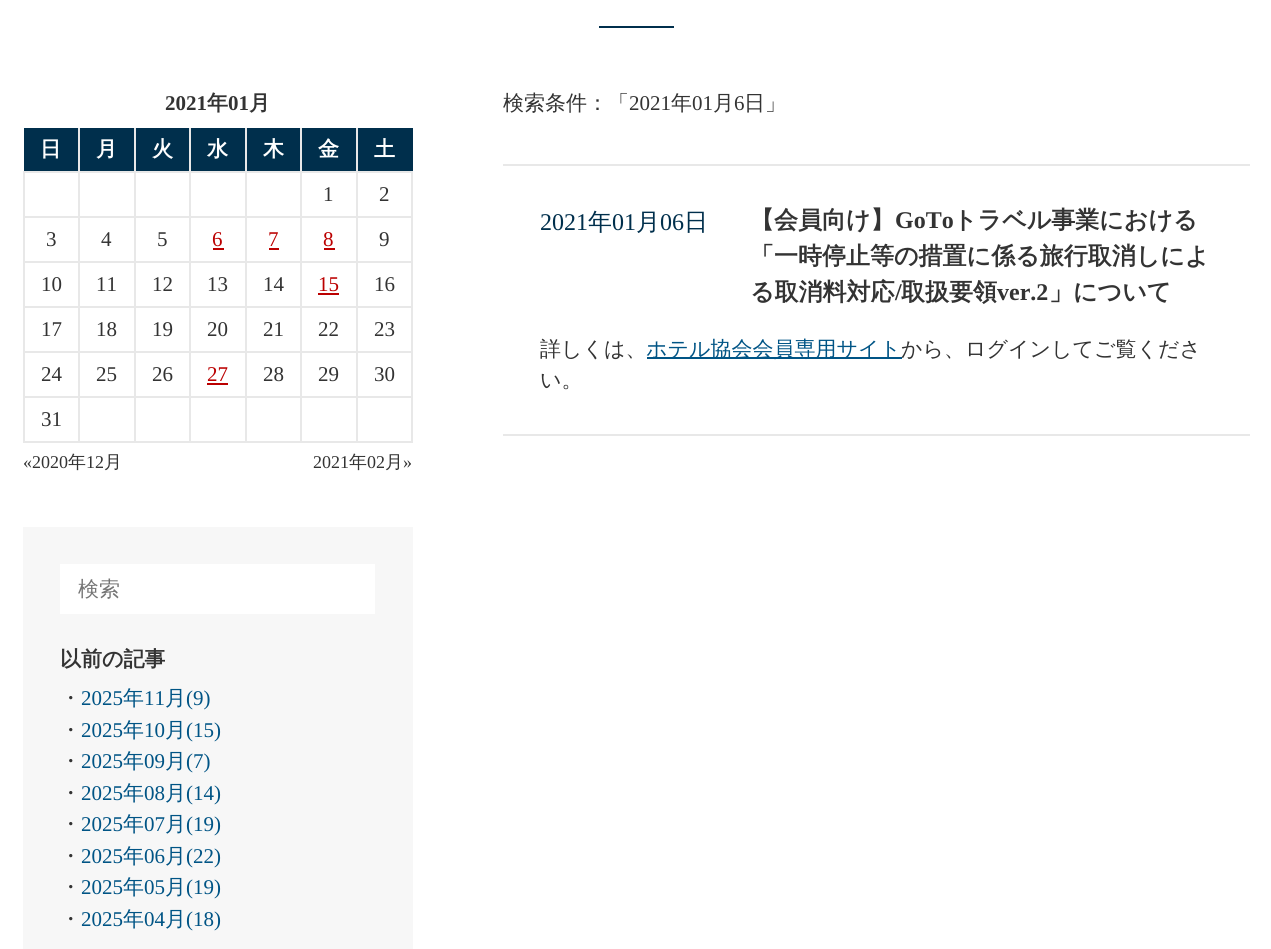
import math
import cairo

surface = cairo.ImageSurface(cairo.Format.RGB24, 1271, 949)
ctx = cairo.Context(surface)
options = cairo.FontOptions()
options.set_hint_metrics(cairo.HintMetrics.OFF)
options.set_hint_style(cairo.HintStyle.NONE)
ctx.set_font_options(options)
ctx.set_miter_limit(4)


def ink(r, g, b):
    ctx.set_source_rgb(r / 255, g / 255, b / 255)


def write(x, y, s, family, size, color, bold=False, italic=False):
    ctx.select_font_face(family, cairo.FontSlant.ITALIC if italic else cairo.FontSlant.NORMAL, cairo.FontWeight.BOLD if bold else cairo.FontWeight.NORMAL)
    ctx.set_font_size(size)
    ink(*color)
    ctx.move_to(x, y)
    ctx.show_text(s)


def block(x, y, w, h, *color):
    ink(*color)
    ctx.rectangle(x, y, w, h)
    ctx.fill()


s1 = dict(family="Liberation Serif", size=21, color=(51, 51, 51), bold=True)
s2 = dict(family="WenQuanYi Zen Hei", size=21, color=(51, 51, 51), bold=True)
s3 = dict(family="WenQuanYi Zen Hei", size=21, color=(255, 255, 255), bold=True)
s4 = dict(family="Liberation Serif", size=21, color=(51, 51, 51))
s5 = dict(family="Liberation Serif", size=21, color=(187, 0, 0))
s6 = dict(family="Liberation Serif", size=18, color=(51, 51, 51))
s7 = dict(family="WenQuanYi Zen Hei Medium", size=18, color=(51, 51, 51))
s8 = dict(family="WenQuanYi Zen Hei Medium", size=21, color=(117, 117, 117))
s9 = dict(family="WenQuanYi Zen Hei Medium", size=21, color=(51, 51, 51))
s10 = dict(family="Liberation Serif", size=21, color=(0, 84, 133))
s11 = dict(family="WenQuanYi Zen Hei Medium", size=21, color=(0, 84, 133))
s12 = dict(family="Liberation Serif", size=24, color=(0, 47, 76))
s13 = dict(family="WenQuanYi Zen Hei Medium", size=24, color=(0, 47, 76))
s14 = dict(family="WenQuanYi Zen Hei", size=24, color=(51, 51, 51), bold=True)
s15 = dict(family="Liberation Serif", size=24, color=(51, 51, 51), bold=True)

ink(255, 255, 255)
ctx.paint()
block(599, 26, 75, 2, 0, 47, 76)
write(165, 110, "2021", **s1)
write(207, 110, "年", **s2)
write(228, 110, "01", **s1)
write(249, 110, "月", **s2)
block(24, 128, 54, 43, 0, 47, 76)
block(356, 171, 57, 2, 232, 232, 232)
block(356, 216, 57, 2, 232, 232, 232)
block(356, 261, 57, 2, 232, 232, 232)
block(356, 306, 57, 2, 232, 232, 232)
block(356, 351, 57, 2, 232, 232, 232)
block(356, 396, 57, 2, 232, 232, 232)
block(411, 396, 2, 47, 232, 232, 232)
block(356, 441, 57, 2, 232, 232, 232)
block(356, 396, 2, 47, 232, 232, 232)
block(300, 396, 57, 2, 232, 232, 232)
block(356, 351, 2, 47, 232, 232, 232)
block(300, 351, 57, 2, 232, 232, 232)
block(356, 306, 2, 47, 232, 232, 232)
block(300, 306, 57, 2, 232, 232, 232)
block(356, 261, 2, 47, 232, 232, 232)
block(300, 261, 57, 2, 232, 232, 232)
block(356, 216, 2, 47, 232, 232, 232)
block(300, 216, 57, 2, 232, 232, 232)
block(356, 171, 2, 47, 232, 232, 232)
block(300, 171, 57, 2, 232, 232, 232)
block(300, 441, 57, 2, 232, 232, 232)
block(300, 396, 2, 47, 232, 232, 232)
block(245, 396, 57, 2, 232, 232, 232)
block(300, 351, 2, 47, 232, 232, 232)
block(245, 351, 57, 2, 232, 232, 232)
block(300, 306, 2, 47, 232, 232, 232)
block(245, 306, 57, 2, 232, 232, 232)
block(300, 261, 2, 47, 232, 232, 232)
block(245, 261, 57, 2, 232, 232, 232)
block(300, 216, 2, 47, 232, 232, 232)
block(245, 216, 57, 2, 232, 232, 232)
block(300, 171, 2, 47, 232, 232, 232)
block(245, 171, 57, 2, 232, 232, 232)
block(245, 441, 57, 2, 232, 232, 232)
block(245, 396, 2, 47, 232, 232, 232)
block(189, 396, 57, 2, 232, 232, 232)
block(245, 351, 2, 47, 232, 232, 232)
block(189, 351, 57, 2, 232, 232, 232)
block(245, 306, 2, 47, 232, 232, 232)
block(189, 306, 57, 2, 232, 232, 232)
block(245, 261, 2, 47, 232, 232, 232)
block(189, 261, 57, 2, 232, 232, 232)
block(245, 216, 2, 47, 232, 232, 232)
block(189, 216, 57, 2, 232, 232, 232)
block(245, 171, 2, 47, 232, 232, 232)
block(189, 171, 57, 2, 232, 232, 232)
block(189, 441, 57, 2, 232, 232, 232)
block(189, 396, 2, 47, 232, 232, 232)
block(134, 396, 57, 2, 232, 232, 232)
block(189, 351, 2, 47, 232, 232, 232)
block(134, 351, 57, 2, 232, 232, 232)
block(189, 306, 2, 47, 232, 232, 232)
block(134, 306, 57, 2, 232, 232, 232)
block(189, 261, 2, 47, 232, 232, 232)
block(134, 261, 57, 2, 232, 232, 232)
block(189, 216, 2, 47, 232, 232, 232)
block(134, 216, 57, 2, 232, 232, 232)
block(189, 171, 2, 47, 232, 232, 232)
block(134, 171, 57, 2, 232, 232, 232)
block(134, 441, 57, 2, 232, 232, 232)
block(134, 396, 2, 47, 232, 232, 232)
block(78, 396, 57, 2, 232, 232, 232)
block(134, 351, 2, 47, 232, 232, 232)
block(78, 351, 57, 2, 232, 232, 232)
block(134, 306, 2, 47, 232, 232, 232)
block(78, 306, 57, 2, 232, 232, 232)
block(134, 261, 2, 47, 232, 232, 232)
block(78, 261, 57, 2, 232, 232, 232)
block(134, 216, 2, 47, 232, 232, 232)
block(78, 216, 57, 2, 232, 232, 232)
block(134, 171, 2, 47, 232, 232, 232)
block(78, 171, 57, 2, 232, 232, 232)
block(78, 441, 57, 2, 232, 232, 232)
block(78, 396, 2, 47, 232, 232, 232)
block(23, 396, 57, 2, 232, 232, 232)
block(78, 351, 2, 47, 232, 232, 232)
block(23, 351, 57, 2, 232, 232, 232)
block(78, 306, 2, 47, 232, 232, 232)
block(23, 306, 57, 2, 232, 232, 232)
block(78, 261, 2, 47, 232, 232, 232)
block(23, 261, 57, 2, 232, 232, 232)
block(78, 216, 2, 47, 232, 232, 232)
block(23, 216, 57, 2, 232, 232, 232)
block(78, 171, 2, 47, 232, 232, 232)
block(23, 171, 57, 2, 232, 232, 232)
block(78, 128, 2, 45, 232, 232, 232)
write(40, 156, "日", **s3)
block(80, 128, 54, 43, 0, 47, 76)
block(134, 128, 2, 45, 232, 232, 232)
write(96, 156, "月", **s3)
block(136, 128, 53, 43, 0, 47, 76)
block(189, 128, 2, 45, 232, 232, 232)
write(152, 156, "火", **s3)
block(191, 128, 54, 43, 0, 47, 76)
block(245, 128, 2, 45, 232, 232, 232)
write(207, 156, "水", **s3)
block(247, 128, 53, 43, 0, 47, 76)
block(300, 128, 2, 45, 232, 232, 232)
write(263, 156, "木", **s3)
block(302, 128, 54, 43, 0, 47, 76)
block(356, 128, 2, 45, 232, 232, 232)
write(318, 156, "金", **s3)
block(358, 128, 55, 43, 0, 47, 76)
write(374, 156, "土", **s3)
block(23, 441, 57, 2, 232, 232, 232)
block(23, 396, 2, 47, 232, 232, 232)
block(23, 351, 2, 47, 232, 232, 232)
block(23, 306, 2, 47, 232, 232, 232)
block(23, 261, 2, 47, 232, 232, 232)
block(23, 216, 2, 47, 232, 232, 232)
block(23, 171, 2, 47, 232, 232, 232)
write(323, 201, "1", **s4)
block(411, 351, 2, 47, 232, 232, 232)
block(411, 306, 2, 47, 232, 232, 232)
block(411, 261, 2, 47, 232, 232, 232)
block(411, 216, 2, 47, 232, 232, 232)
block(411, 171, 2, 47, 232, 232, 232)
write(379, 201, "2", **s4)
write(46, 246, "3", **s4)
write(101, 246, "4", **s4)
write(157, 246, "5", **s4)
write(212, 246, "6", **s5)
block(213, 248, 11, 2, 187, 0, 0)
write(268, 246, "7", **s5)
block(269, 248, 10, 2, 187, 0, 0)
write(323, 246, "8", **s5)
block(324, 248, 11, 2, 187, 0, 0)
write(379, 246, "9", **s4)
write(41, 291, "10", **s4)
write(96, 291, "11", **s4)
write(152, 291, "12", **s4)
write(207, 291, "13", **s4)
write(263, 291, "14", **s4)
write(318, 291, "15", **s5)
block(318, 293, 21, 2, 187, 0, 0)
write(374, 291, "16", **s4)
write(41, 336, "17", **s4)
write(96, 336, "18", **s4)
write(152, 336, "19", **s4)
write(207, 336, "20", **s4)
write(263, 336, "21", **s4)
write(318, 336, "22", **s4)
write(374, 336, "23", **s4)
write(41, 381, "24", **s4)
write(96, 381, "25", **s4)
write(152, 381, "26", **s4)
write(207, 381, "27", **s5)
block(207, 383, 21, 2, 187, 0, 0)
write(263, 381, "28", **s4)
write(318, 381, "29", **s4)
write(374, 381, "30", **s4)
write(41, 426, "31", **s4)
write(23, 468, "«2020", **s6)
write(68, 468, "年", **s7)
write(86, 468, "12", **s6)
write(104, 468, "月", **s7)
write(313, 468, "2021", **s6)
write(349, 468, "年", **s7)
write(367, 468, "02", **s6)
write(385, 468, "月", **s7)
write(403, 468, "»", **s6)
block(23, 527, 390, 422, 247, 247, 247)
block(60, 564, 315, 50, 255, 255, 255)
write(78, 596, "検索", **s8)
write(60, 666, "以前の記事", **s2)
write(60, 705, "・", **s9)
write(81, 705, "2025", **s10)
write(123, 705, "年", **s11)
write(144, 705, "11", **s10)
write(165, 705, "月", **s11)
write(186, 705, "(9)", **s10)
write(60, 737, "・", **s9)
write(81, 737, "2025", **s10)
write(123, 737, "年", **s11)
write(144, 737, "10", **s10)
write(165, 737, "月", **s11)
write(186, 737, "(15)", **s10)
write(60, 768, "・", **s9)
write(81, 768, "2025", **s10)
write(123, 768, "年", **s11)
write(144, 768, "09", **s10)
write(165, 768, "月", **s11)
write(186, 768, "(7)", **s10)
write(60, 800, "・", **s9)
write(81, 800, "2025", **s10)
write(123, 800, "年", **s11)
write(144, 800, "08", **s10)
write(165, 800, "月", **s11)
write(186, 800, "(14)", **s10)
write(60, 831, "・", **s9)
write(81, 831, "2025", **s10)
write(123, 831, "年", **s11)
write(144, 831, "07", **s10)
write(165, 831, "月", **s11)
write(186, 831, "(19)", **s10)
write(60, 863, "・", **s9)
write(81, 863, "2025", **s10)
write(123, 863, "年", **s11)
write(144, 863, "06", **s10)
write(165, 863, "月", **s11)
write(186, 863, "(22)", **s10)
write(60, 894, "・", **s9)
write(81, 894, "2025", **s10)
write(123, 894, "年", **s11)
write(144, 894, "05", **s10)
write(165, 894, "月", **s11)
write(186, 894, "(19)", **s10)
write(60, 926, "・", **s9)
write(81, 926, "2025", **s10)
write(123, 926, "年", **s11)
write(144, 926, "04", **s10)
write(165, 926, "月", **s11)
write(186, 926, "(18)", **s10)
write(503, 110, "検索条件：「", **s9)
write(629, 110, "2021", **s4)
write(671, 110, "年", **s9)
write(692, 110, "01", **s4)
write(713, 110, "月", **s9)
write(734, 110, "6", **s4)
write(744, 110, "日」", **s9)
block(503, 164, 747, 2, 232, 232, 232)
block(503, 434, 747, 2, 232, 232, 232)
write(540, 230, "2021", **s12)
write(588, 230, "年", **s13)
write(612, 230, "01", **s12)
write(636, 230, "月", **s13)
write(660, 230, "06", **s12)
write(684, 230, "日", **s13)
write(750, 228, "【会員向け】", **s14)
write(895, 228, "GoTo", **s15)
write(953, 228, "トラベル事業における", **s14)
write(750, 264, "「一時停止等の措置に係る旅行取消しによ", **s14)
write(750, 300, "る取消料対応", **s14)
write(895, 300, "/", **s15)
write(901, 300, "取扱要領", **s14)
write(997, 300, "ver.2", **s15)
write(1049, 300, "」について", **s14)
write(540, 356, "詳しくは、", **s9)
block(647, 357, 255, 2, 0, 84, 133)
write(646, 356, "ホテル協会会員専用サイト", **s11)
write(901, 356, "から、ログインしてご覧くださ", **s9)
write(540, 387, "い。", **s9)
surface.write_to_png("screenshot.png")
